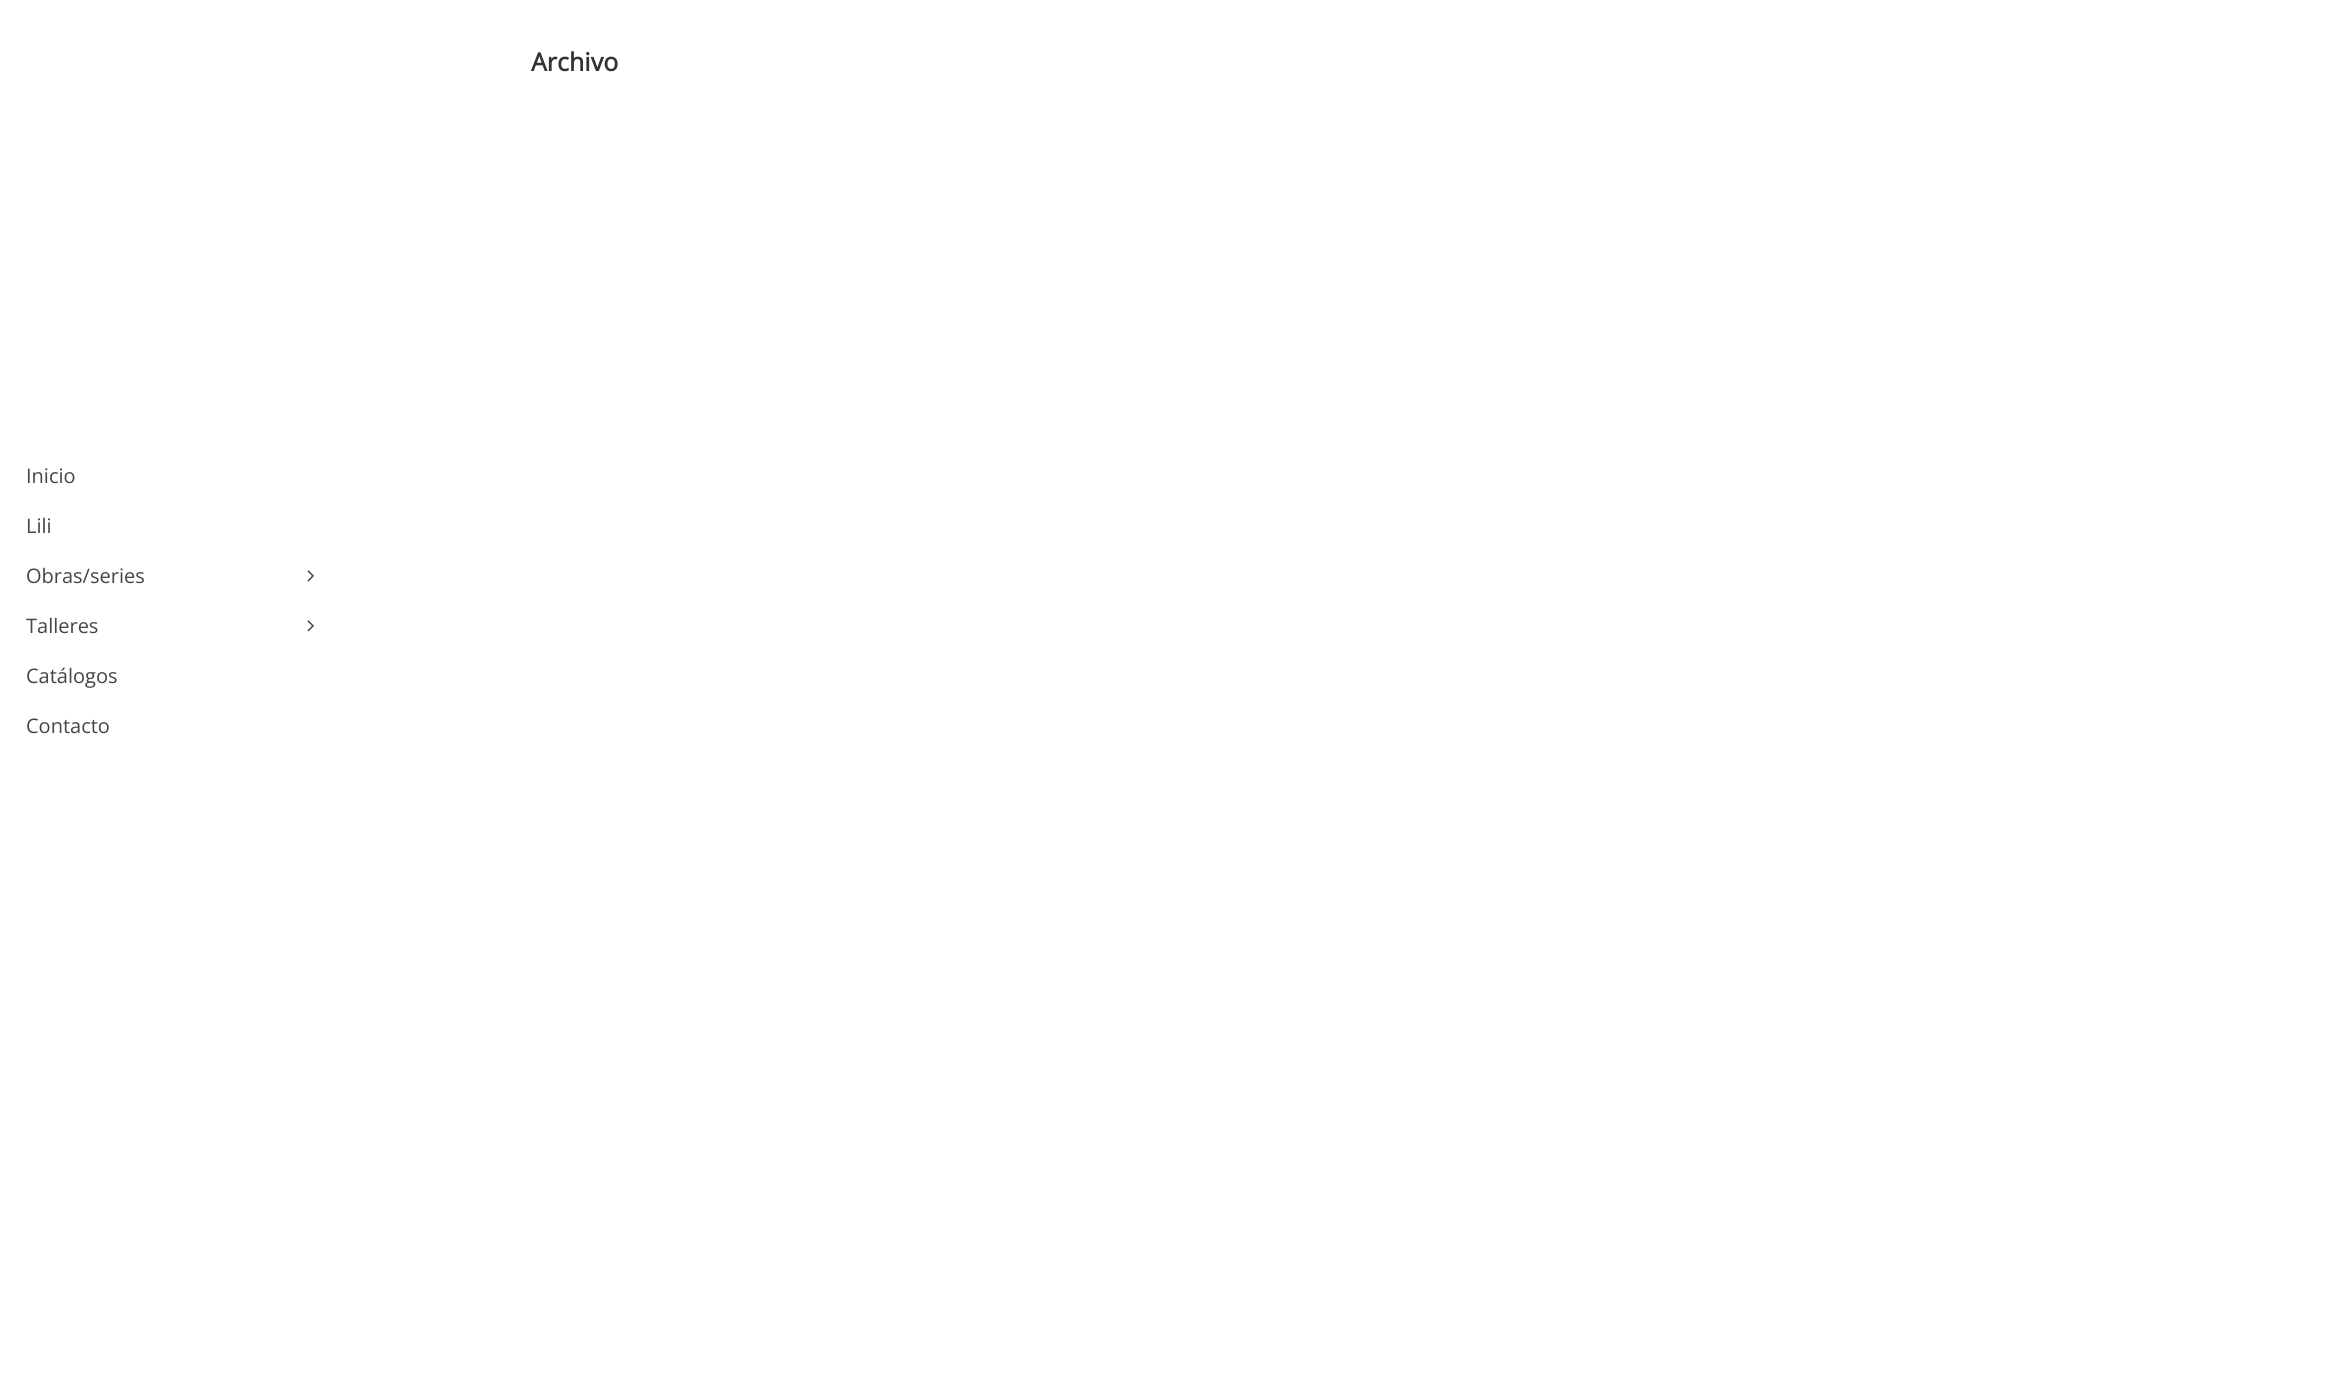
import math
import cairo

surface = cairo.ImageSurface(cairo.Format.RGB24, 2345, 1374)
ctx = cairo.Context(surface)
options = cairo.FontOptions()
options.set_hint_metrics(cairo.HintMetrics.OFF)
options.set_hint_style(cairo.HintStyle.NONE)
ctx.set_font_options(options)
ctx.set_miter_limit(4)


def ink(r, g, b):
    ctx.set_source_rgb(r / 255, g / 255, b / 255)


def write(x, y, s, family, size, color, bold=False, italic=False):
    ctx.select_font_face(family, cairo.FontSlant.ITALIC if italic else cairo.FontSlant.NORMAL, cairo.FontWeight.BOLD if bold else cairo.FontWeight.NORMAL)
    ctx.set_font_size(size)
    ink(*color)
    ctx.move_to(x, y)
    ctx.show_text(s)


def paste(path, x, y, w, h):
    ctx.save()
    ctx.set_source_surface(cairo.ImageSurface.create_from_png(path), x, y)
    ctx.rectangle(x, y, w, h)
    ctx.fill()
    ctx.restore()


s1 = dict(family="Open Sans", size=25, color=(51, 51, 51), bold=True)
s2 = dict(family="Open Sans", size=20, color=(69, 69, 69))

ink(255, 255, 255)
ctx.paint()
write(531, 71, "Archivo", **s1)
write(26, 483, "Inicio", **s2)
write(26, 533, "Lili", **s2)
write(26, 583, "Obras/series", **s2)
paste("pic1.png", 307, 570, 7, 12)
write(26, 633, "Talleres", **s2)
paste("pic1.png", 307, 620, 7, 12)
write(26, 683, "Catálogos", **s2)
write(26, 733, "Contacto", **s2)
surface.write_to_png("screenshot.png")
